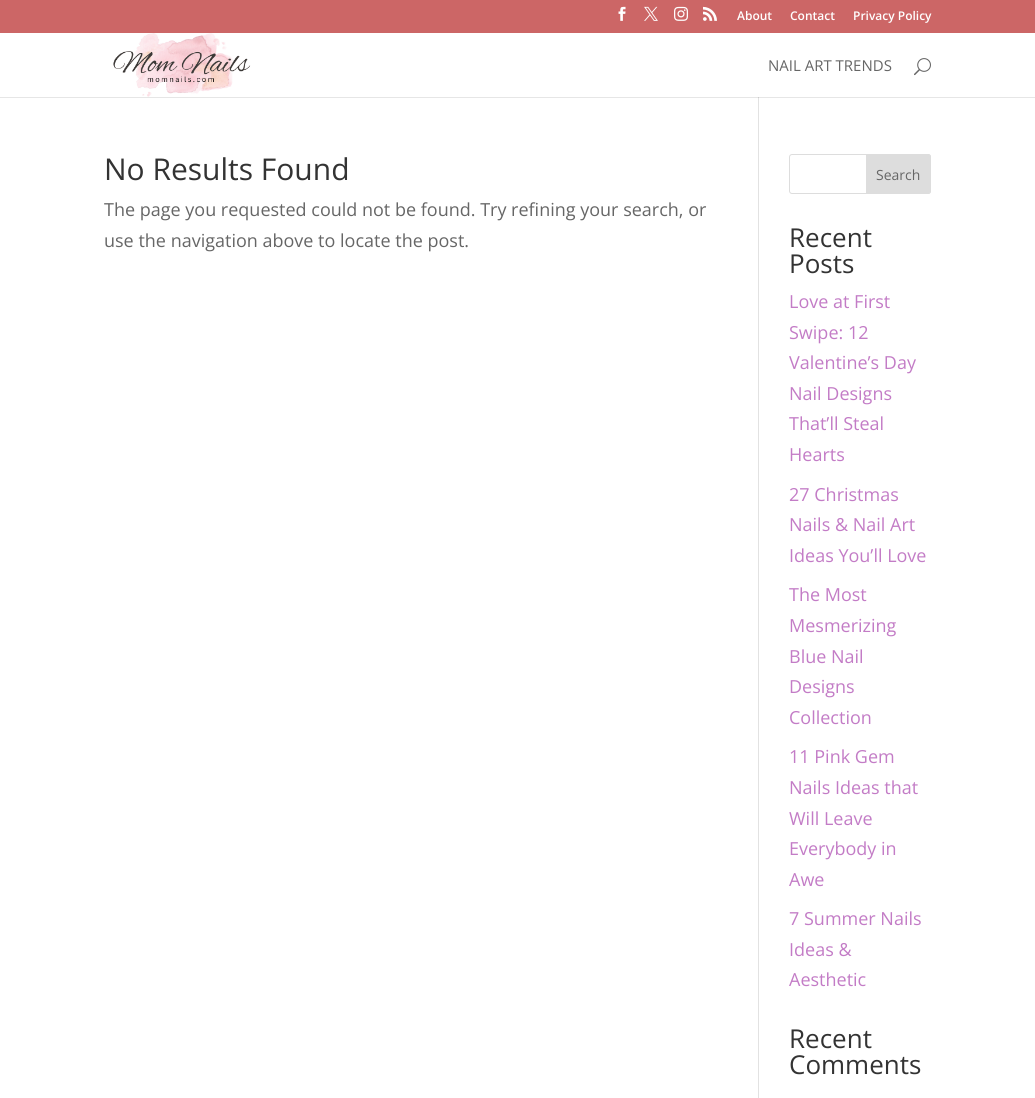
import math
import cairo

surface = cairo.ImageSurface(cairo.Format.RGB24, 1035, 1098)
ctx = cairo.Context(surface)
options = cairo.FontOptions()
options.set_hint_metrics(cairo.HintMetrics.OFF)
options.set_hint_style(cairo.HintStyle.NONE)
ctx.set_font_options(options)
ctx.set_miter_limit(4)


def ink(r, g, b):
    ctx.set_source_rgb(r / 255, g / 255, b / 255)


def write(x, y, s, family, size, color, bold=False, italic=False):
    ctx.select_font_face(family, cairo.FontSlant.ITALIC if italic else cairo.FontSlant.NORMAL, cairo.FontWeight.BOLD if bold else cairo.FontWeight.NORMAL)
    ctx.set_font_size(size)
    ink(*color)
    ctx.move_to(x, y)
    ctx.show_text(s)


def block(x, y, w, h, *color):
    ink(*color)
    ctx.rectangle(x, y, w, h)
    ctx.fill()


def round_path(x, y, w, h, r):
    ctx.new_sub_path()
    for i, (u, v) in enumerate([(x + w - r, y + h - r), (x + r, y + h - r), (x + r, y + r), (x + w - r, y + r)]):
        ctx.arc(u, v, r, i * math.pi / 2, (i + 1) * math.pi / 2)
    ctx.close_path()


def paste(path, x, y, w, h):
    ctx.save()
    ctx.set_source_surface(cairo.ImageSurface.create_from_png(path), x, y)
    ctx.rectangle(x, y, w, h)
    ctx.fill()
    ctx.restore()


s1 = dict(family="Open Sans SemiBold", size=12, color=(255, 255, 255))
s2 = dict(family="Open Sans", size=15, color=(102, 102, 102))
s3 = dict(family="Open Sans", size=30, color=(51, 51, 51))
s4 = dict(family="Open Sans", size=18, color=(102, 102, 102))
s5 = dict(family="Open Sans", size=14, color=(102, 102, 102))
s6 = dict(family="Open Sans", size=26, color=(51, 51, 51))
s7 = dict(family="Open Sans", size=18, color=(195, 124, 198))

ink(255, 255, 255)
ctx.paint()
block(0, 97, 1035, 1, 230, 230, 230)
block(0, 0, 1035, 33, 204, 102, 102)
paste("pic1.png", 618, 6, 8, 15)
paste("pic2.png", 644, 6, 14, 15)
paste("pic3.png", 674, 6, 14, 15)
paste("pic4.png", 703, 6, 14, 15)
write(737, 20, "About", **s1)
write(790, 20, "Contact", **s1)
write(853, 20, "Privacy Policy", **s1)
block(758, 96, 1, 1002, 226, 226, 226)
block(758, 96, 1, 1, 255, 255, 255)
paste("pic5.png", 113, 33, 138, 64)
write(768, 71, "NAIL ART TRENDS", **s2)
paste("pic6.png", 914, 58, 17, 18)
block(758, 97, 1, 1, 203, 203, 203)
write(104, 180, "No Results Found", **s3)
write(104, 216, "The page you requested could not be found. Try refining your search, or", **s4)
write(104, 247, "use the navigation above to locate the post.", **s4)
round_path(789.5, 154.5, 141, 39, 2.5)
ink(221, 221, 221)
ctx.set_line_width(1)
ctx.stroke()
ctx.new_path()
ctx.move_to(866.5, 154.5)
ctx.line_to(928, 154.5)
ctx.curve_to(929.5, 154.5, 930.5, 155.5, 930.5, 157)
ctx.line_to(930.5, 191)
ctx.curve_to(930.5, 192.5, 929.5, 193.5, 928, 193.5)
ctx.line_to(866.5, 193.5)
ctx.close_path()
ctx.fill_preserve()
ctx.stroke()
write(876, 180, "Search", **s5)
write(789, 247, "Recent", **s6)
write(789, 273, "Posts", **s6)
write(789, 308, "Love at First", **s7)
write(789, 339, "Swipe: 12", **s7)
write(789, 369, "Valentine’s Day", **s7)
write(789, 400, "Nail Designs", **s7)
write(789, 430, "That’ll Steal", **s7)
write(789, 461, "Hearts", **s7)
write(789, 501, "27 Christmas", **s7)
write(789, 531, "Nails & Nail Art", **s7)
write(789, 562, "Ideas You’ll Love", **s7)
write(789, 601, "The Most", **s7)
write(789, 632, "Mesmerizing", **s7)
write(789, 663, "Blue Nail", **s7)
write(789, 693, "Designs", **s7)
write(789, 724, "Collection", **s7)
write(789, 763, "11 Pink Gem", **s7)
write(789, 794, "Nails Ideas that", **s7)
write(789, 825, "Will Leave", **s7)
write(789, 855, "Everybody in", **s7)
write(789, 886, "Awe", **s7)
write(789, 925, "7 Summer Nails", **s7)
write(789, 956, "Ideas &", **s7)
write(789, 986, "Aesthetic", **s7)
write(789, 1048, "Recent", **s6)
write(789, 1074, "Comments", **s6)
surface.write_to_png("screenshot.png")
